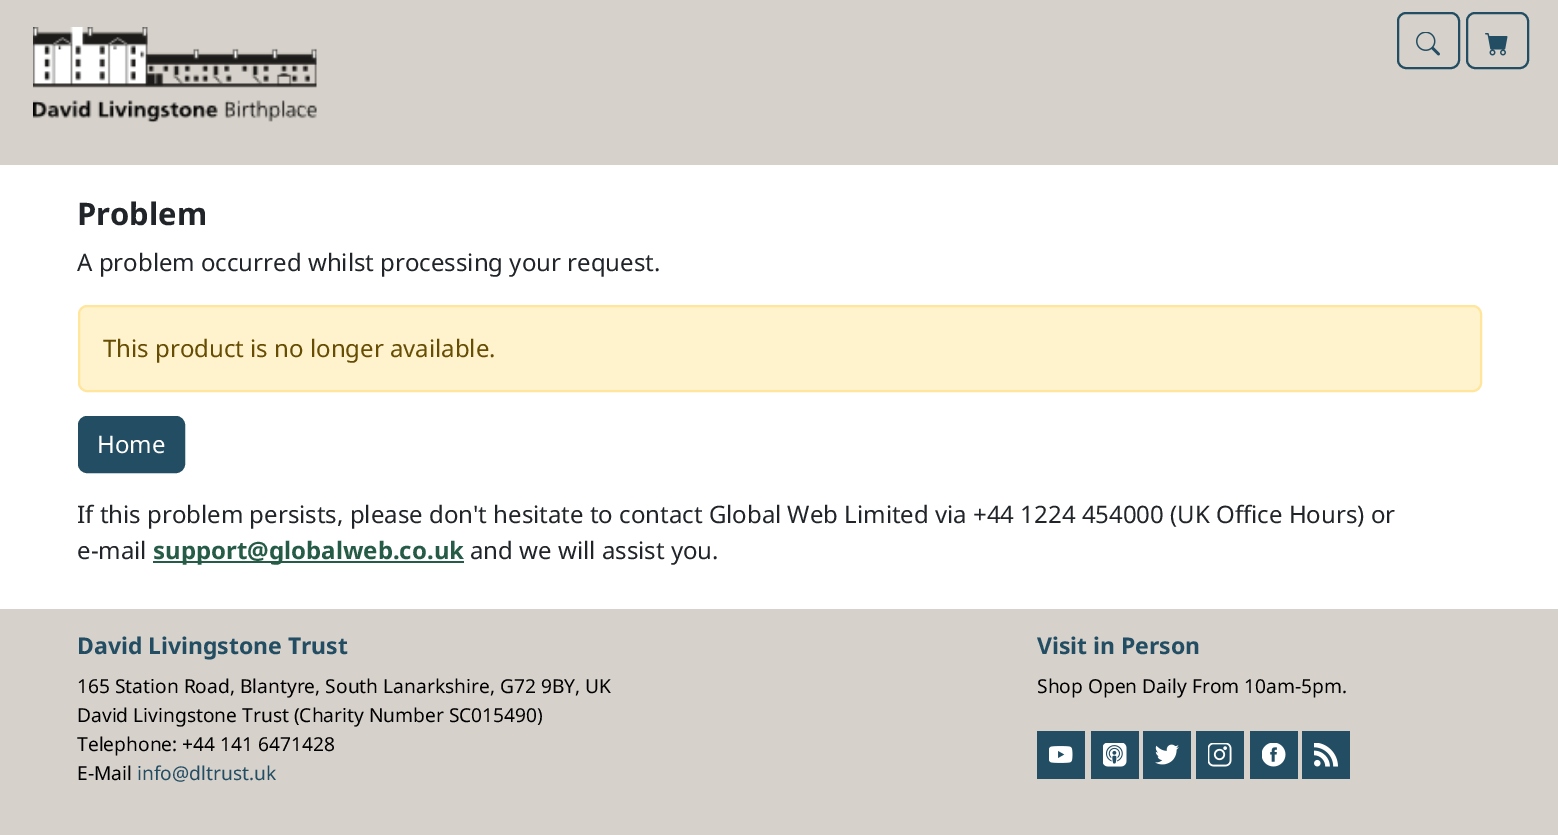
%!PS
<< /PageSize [1558 835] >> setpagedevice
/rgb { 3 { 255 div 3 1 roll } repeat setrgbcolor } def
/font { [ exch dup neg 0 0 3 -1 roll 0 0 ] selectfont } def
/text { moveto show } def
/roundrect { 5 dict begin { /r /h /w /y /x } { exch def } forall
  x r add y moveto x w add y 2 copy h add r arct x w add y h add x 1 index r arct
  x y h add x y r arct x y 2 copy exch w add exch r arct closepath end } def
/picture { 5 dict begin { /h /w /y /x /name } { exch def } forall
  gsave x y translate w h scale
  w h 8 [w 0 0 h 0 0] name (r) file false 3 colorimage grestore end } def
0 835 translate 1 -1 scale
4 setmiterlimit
255 255 255 rgb
0 0 1558 835 rectfill
214 209 202 rgb
0 0 1558 165 rectfill
(img_01.rgb) 33 27 284 96 picture
34 77 98 rgb
2 setlinewidth
1398 13 61 55 8 roundrect stroke
(img_02.rgb) 1416 32 24 24 picture
1467 13 61 55 8 roundrect stroke
(img_03.rgb) 1485 33 23 23 picture
255 243 205 rgb
79 306 1402 85 8 roundrect gsave fill grestore
255 230 156 rgb
stroke
34 77 98 rgb
79 417 105 55 8 roundrect gsave fill grestore
stroke
38 91 71 rgb
153 561 311 2 rectfill
214 209 202 rgb
0 609 1558 226 rectfill
34 77 98 rgb
1037 731 48 48 rectfill
1091 731 48 48 rectfill
1143 731 48 48 rectfill
1196 731 48 48 rectfill
1250 731 48 48 rectfill
1302 731 48 48 rectfill
(img_04.rgb) 1049 746 24 17 picture
(img_05.rgb) 1103 743 24 24 picture
(img_06.rgb) 1155 744 24 21 picture
(img_07.rgb) 1208 743 24 24 picture
(img_08.rgb) 1262 743 24 24 picture
(img_09.rgb) 1314 743 24 24 picture
/NotoSans-Bold 31 font
33 37 41 rgb
(Problem) 77 225 text
/NotoSans-Regular 24 font
(A problem occurred whilst processing your request.) 77 271 text
102 77 3 rgb
(This product is no longer available.) 103 357 text
255 255 255 rgb
(Home) 97 453 text
33 37 41 rgb
(If this problem persists, please don't hesitate to contact Global Web Limited via +44 1224 454000 \(UK Office Hours\) or) 77 523 text
(e-mail) 77 559 text
/NotoSans-Bold 24 font
38 91 71 rgb
(support@globalweb.co.uk) 153 559 text
/NotoSans-Regular 24 font
33 37 41 rgb
(and we will assist you.) 470 559 text
/NotoSans-Bold 23 font
34 77 98 rgb
(David Livingstone Trust) 77 654 text
/NotoSans-Regular 19.2 font
0 0 0 rgb
(165 Station Road, Blantyre, South Lanarkshire, G72 9BY, UK) 77 693 text
(David Livingstone Trust \(Charity Number SC015490\)) 77 722 text
(Telephone: +44 141 6471428) 77 751 text
(E-Mail) 77 780 text
34 77 98 rgb
(info@dltrust.uk) 137 780 text
/NotoSans-Bold 23 font
(Visit in Person) 1037 654 text
/NotoSans-Regular 19.2 font
0 0 0 rgb
(Shop Open Daily From 10am-5pm.) 1037 693 text
showpage
